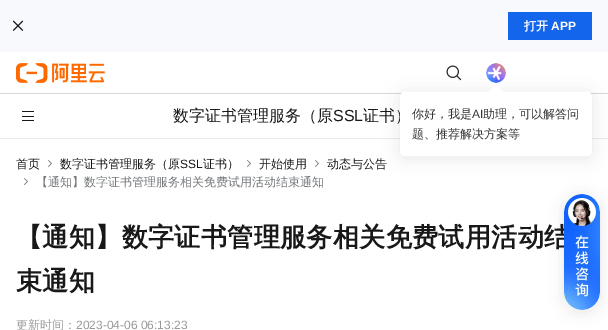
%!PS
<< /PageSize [608 330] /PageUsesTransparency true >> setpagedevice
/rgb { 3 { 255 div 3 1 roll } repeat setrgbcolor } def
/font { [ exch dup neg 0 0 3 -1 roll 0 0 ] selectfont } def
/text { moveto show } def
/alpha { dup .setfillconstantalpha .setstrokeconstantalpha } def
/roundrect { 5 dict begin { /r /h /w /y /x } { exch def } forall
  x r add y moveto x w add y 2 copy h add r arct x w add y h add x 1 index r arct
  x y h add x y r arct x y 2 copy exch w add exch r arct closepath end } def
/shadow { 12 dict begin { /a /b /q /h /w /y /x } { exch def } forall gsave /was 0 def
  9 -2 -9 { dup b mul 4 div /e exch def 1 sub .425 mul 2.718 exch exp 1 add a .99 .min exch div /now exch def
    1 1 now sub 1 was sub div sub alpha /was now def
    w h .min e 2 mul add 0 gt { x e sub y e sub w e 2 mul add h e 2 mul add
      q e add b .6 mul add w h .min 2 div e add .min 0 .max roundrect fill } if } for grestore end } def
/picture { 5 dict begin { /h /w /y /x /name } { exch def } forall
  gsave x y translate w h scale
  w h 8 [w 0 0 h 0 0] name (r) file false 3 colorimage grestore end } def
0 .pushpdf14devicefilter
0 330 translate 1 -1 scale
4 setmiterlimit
255 255 255 rgb
0 0 608 330 rectfill
247 249 252 rgb
0 0 608 52 rectfill
(img_01.rgb) 12 20 12 11 picture
19 102 236 rgb
508 12 84 28 rectfill
215 216 217 rgb
0 93 608 1 rectfill
(img_02.rgb) 16 63 89 20 picture
(img_03.rgb) 446 65 16 16 picture
(img_04.rgb) 486 63 20 20 picture
(img_05.rgb) 487 66 15 15 picture
233 233 233 rgb
0 138 608 1 rectfill
0 0 0 rgb
400 94 192 64 5 9 0.1 shadow
24 24 24 rgb
22 111 12 1 rectfill
22 116 12 1 rectfill
22 120 12 1 rectfill
(img_06.rgb) 48 160 4 7 picture
(img_06.rgb) 247 160 4 7 picture
(img_06.rgb) 315 160 4 7 picture
(img_06.rgb) 24 178 4 7 picture
0 0 0 rgb
564 196 36 116 18 7.5 0.1 shadow
/WenQuanYiZenHei-Bold 12 font
255 255 255 rgb
(打开) 524 30 text
/LiberationSans-Bold 12 font
(APP) 551 30 text
/WenQuanYiZenHei-Medium 16 font
24 24 24 rgb
(数字证书管理服务（原) 173 121 text
/LiberationSans-Regular 16 font
(SSL) 333 121 text
/WenQuanYiZenHei-Medium 16 font
(证书）) 363 121 text
255 255 255 rgb
400 92 192 64 5 roundrect fill
496 85 moveto 7 7 rlineto -7 7 rlineto -7 -7 rlineto closepath fill
/WenQuanYiZenHei-Medium 12 font
51 51 51 rgb
(题、推荐解决方案等) 412 138 text
(助理，可以解答问) 483 118 text
/LiberationSans-Regular 12 font
(AI) 472 118 text
/WenQuanYiZenHei-Medium 12 font
(你好，我是) 412 118 text
24 24 24 rgb
(首页) 16 168 text
(数字证书管理服务（原) 60 168 text
/LiberationSans-Regular 12 font
(SSL) 180 168 text
/WenQuanYiZenHei-Medium 12 font
(证书）) 203 168 text
(开始使用) 259 168 text
(动态与公告) 327 168 text
115 119 122 rgb
(【通知】数字证书管理服务相关免费试用活动结束通知) 36 186 text
/WenQuanYiZenHei-Bold 26 font
24 24 24 rgb
16 246 moveto 0.4 0 (【通知】数字证书管理服务相关免费试用活动结) ashow
16 290 moveto 0.4 0 (束通知) ashow
/WenQuanYiZenHei-Medium 12 font
153 153 153 rgb
(更新时间：) 16 329 text
/LiberationSans-Regular 12 font
(2023-04-06 06:13:23) 76 329 text
(img_07.rgb) 564 194 36 116 picture
.poppdf14devicefilter showpage
